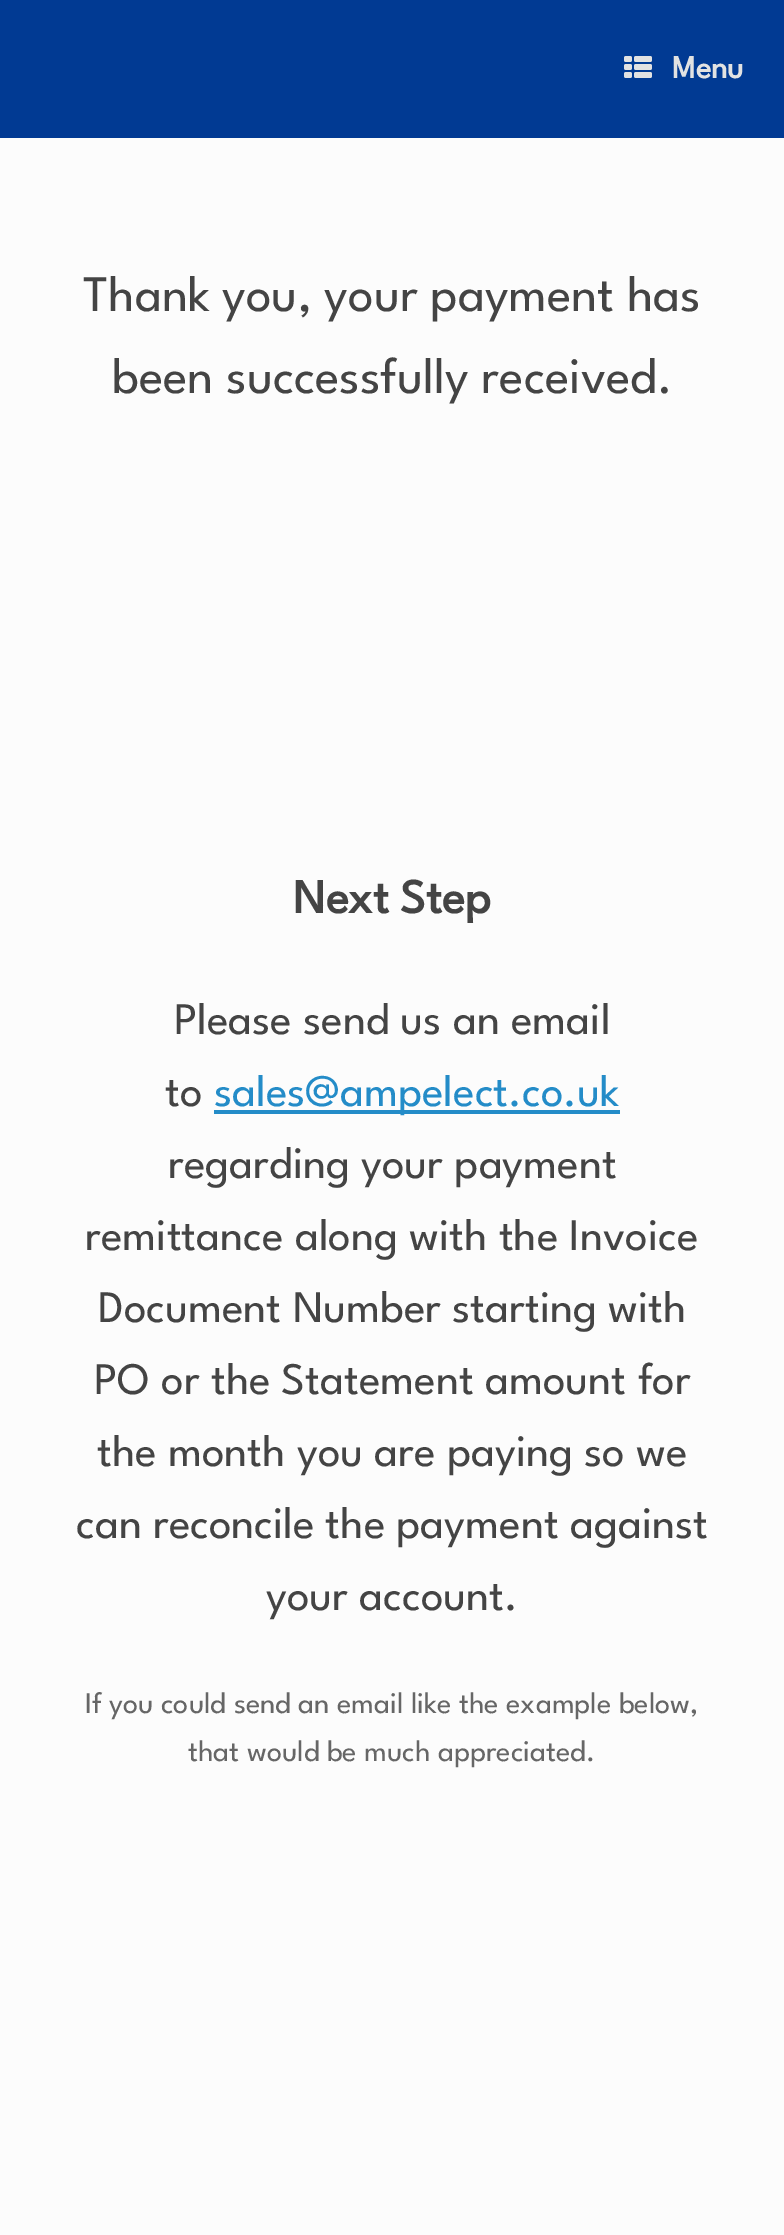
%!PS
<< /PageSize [784 2235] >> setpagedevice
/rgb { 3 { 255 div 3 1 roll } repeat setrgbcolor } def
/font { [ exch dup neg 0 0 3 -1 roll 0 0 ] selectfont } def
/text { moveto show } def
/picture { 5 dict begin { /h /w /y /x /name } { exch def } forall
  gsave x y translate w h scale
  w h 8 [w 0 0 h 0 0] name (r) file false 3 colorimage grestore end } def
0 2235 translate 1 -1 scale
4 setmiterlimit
252 252 252 rgb
0 0 784 2235 rectfill
1 58 147 rgb
0 0 784 138 rectfill
(img_01.rgb) 624 56 28 22 picture
36 140 200 rgb
214 1110 406 4 rectfill
/LeagueSpartan-Bold 32 font
226 226 226 rgb
(Menu) 672 78 text
/LeagueSpartan-Thin 51 font
68 68 68 rgb
(Thank you, your payment has) 83 311 text
(been successfully received.) 112 393 text
/LeagueSpartan-Bold 48 font
(Next Step) 293 913 text
/LeagueSpartan-Thin 45 font
(Please send us an email) 174 1034 text
(to) 165 1106 text
36 140 200 rgb
(sales@ampelect.co.uk) 214 1106 text
68 68 68 rgb
(regarding your payment) 168 1178 text
(remittance along with the Invoice) 85 1250 text
(Document Number starting with) 98 1322 text
(PO or the Statement amount for) 94 1394 text
(the month you are paying so we) 97 1466 text
(can reconcile the payment against) 76 1538 text
(your account.) 266 1610 text
/LeagueSpartan-Thin 30 font
102 102 102 rgb
(If you could send an email like the example below,) 85 1713 text
(that would be much appreciated.) 188 1761 text
showpage
